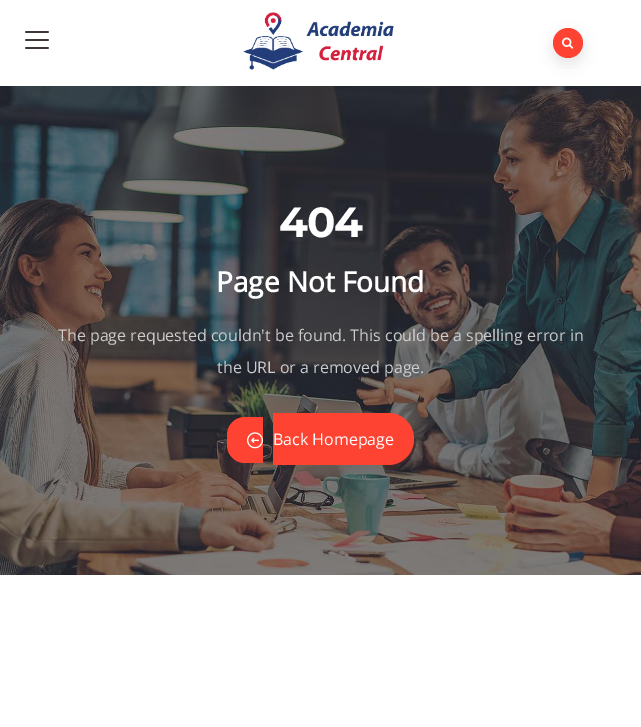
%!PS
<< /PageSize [641 727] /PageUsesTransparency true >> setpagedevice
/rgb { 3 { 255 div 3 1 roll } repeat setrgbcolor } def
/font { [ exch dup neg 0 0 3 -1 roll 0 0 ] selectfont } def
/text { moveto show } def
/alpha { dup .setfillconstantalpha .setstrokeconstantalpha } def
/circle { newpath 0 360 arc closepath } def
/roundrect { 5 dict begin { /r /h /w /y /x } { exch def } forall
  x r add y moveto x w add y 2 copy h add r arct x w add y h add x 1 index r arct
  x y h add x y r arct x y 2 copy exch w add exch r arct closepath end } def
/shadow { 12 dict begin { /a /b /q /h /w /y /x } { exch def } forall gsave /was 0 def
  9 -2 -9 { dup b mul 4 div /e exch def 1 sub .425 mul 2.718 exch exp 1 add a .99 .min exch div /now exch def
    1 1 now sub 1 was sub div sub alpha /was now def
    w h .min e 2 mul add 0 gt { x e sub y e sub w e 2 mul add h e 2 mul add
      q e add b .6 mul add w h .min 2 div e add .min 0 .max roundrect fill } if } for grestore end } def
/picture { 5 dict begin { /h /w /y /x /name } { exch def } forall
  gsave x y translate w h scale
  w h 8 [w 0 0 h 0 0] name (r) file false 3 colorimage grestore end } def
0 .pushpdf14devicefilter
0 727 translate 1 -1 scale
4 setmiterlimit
255 255 255 rgb
0 0 641 727 rectfill
(img_01.rgb) 25 31 24 18 picture
(img_02.rgb) 243 12 151 58 picture
0 0 0 rgb
553 34 30 30 15 7 0.1 shadow
255 67 50 rgb
568 43 15 circle fill
(img_03.rgb) 562 37 12 12 picture
(img_04.rgb) 0 86 641 489 picture
245 417 moveto 18 0 rlineto 0 46 rlineto -18 0 rlineto -10 0 -18 -8 -18 -18 rcurveto 0 -10 rlineto 0 -10 8 -18 18 -18 rcurveto closepath fill
(img_05.rgb) 247 432 16 17 picture
273 413 moveto 115 0 rlineto 14.5 0 26 11.5 26 26 rcurveto 0 14.5 -11.5 26 -26 26 rcurveto -115 0 rlineto closepath fill
/Montserrat-Bold 42 font
255 255 255 rgb
279 237 moveto -1 0 (404) ashow
/OpenSans-Bold 28 font
(Page Not Found) 216 292 text
/OpenSans-Regular 16 font
204 204 204 rgb
(The page requested couldn't be found. This could be a spelling error in) 58 341 text
(the URL or a removed page.) 217 373 text
255 255 255 rgb
(Back Homepage) 273 445 text
.poppdf14devicefilter showpage
